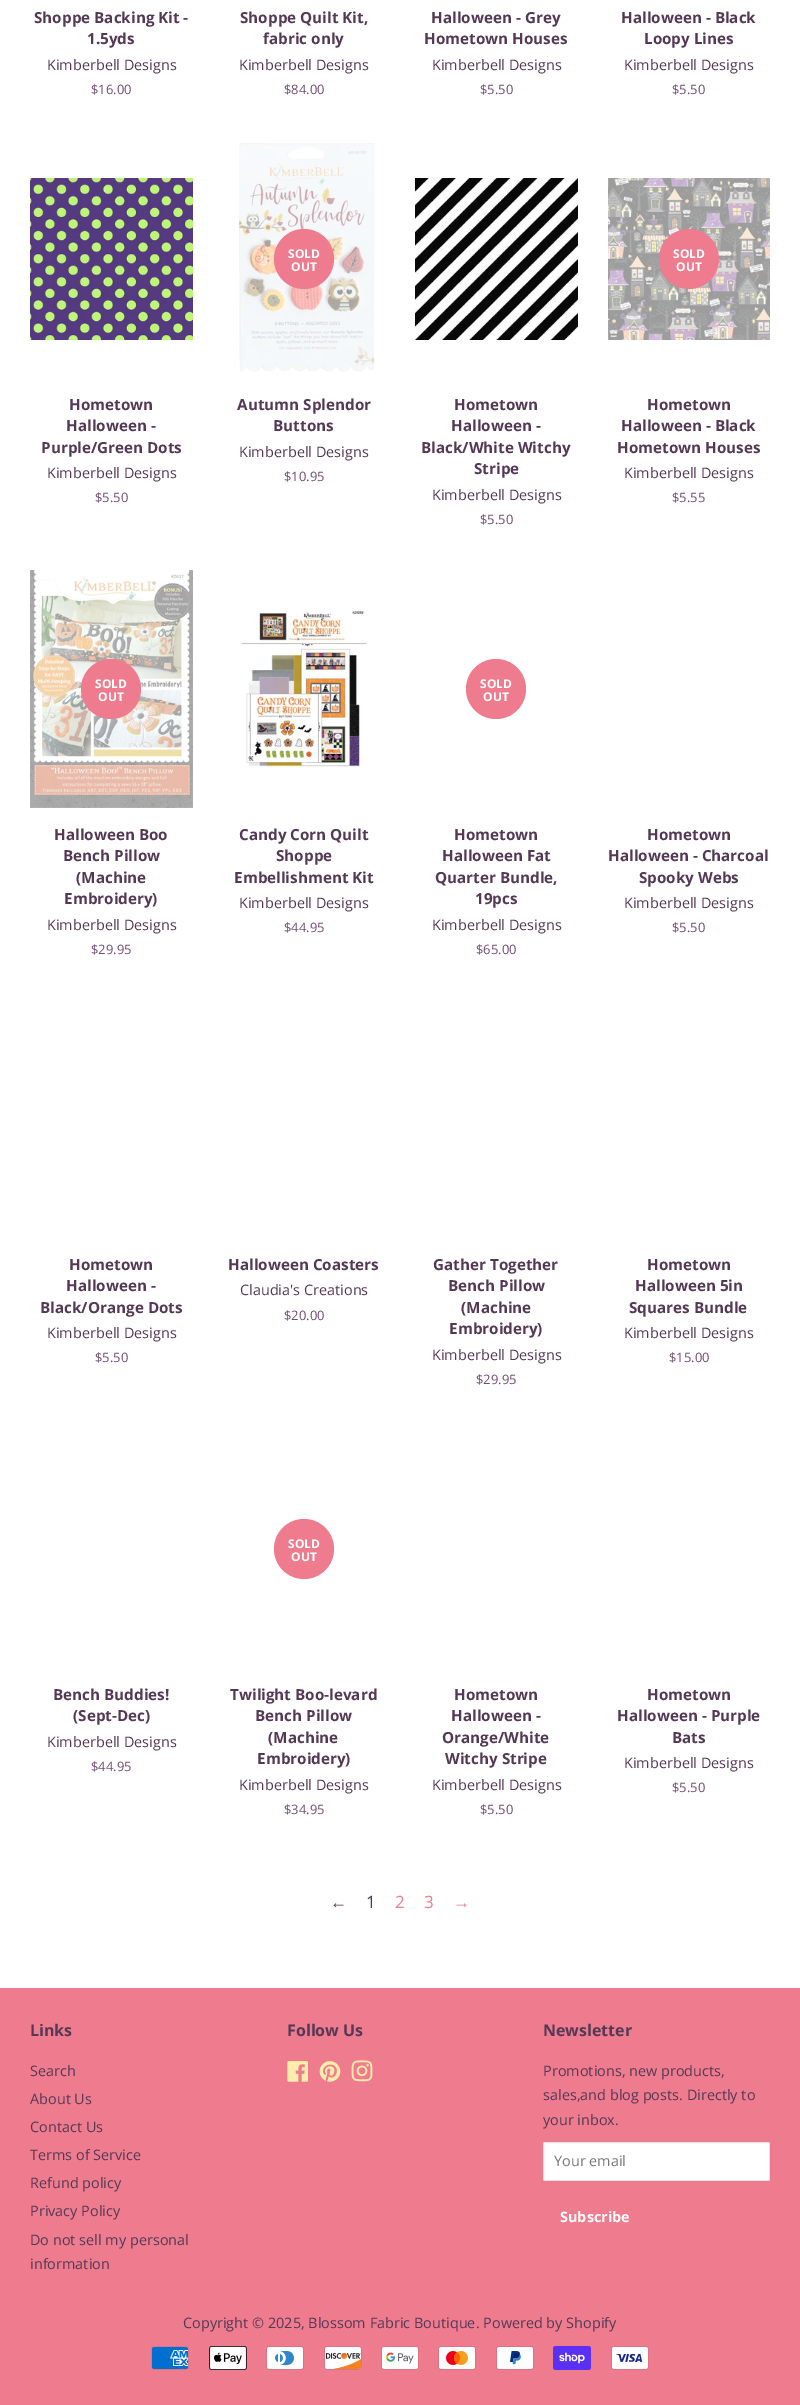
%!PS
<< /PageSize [800 2405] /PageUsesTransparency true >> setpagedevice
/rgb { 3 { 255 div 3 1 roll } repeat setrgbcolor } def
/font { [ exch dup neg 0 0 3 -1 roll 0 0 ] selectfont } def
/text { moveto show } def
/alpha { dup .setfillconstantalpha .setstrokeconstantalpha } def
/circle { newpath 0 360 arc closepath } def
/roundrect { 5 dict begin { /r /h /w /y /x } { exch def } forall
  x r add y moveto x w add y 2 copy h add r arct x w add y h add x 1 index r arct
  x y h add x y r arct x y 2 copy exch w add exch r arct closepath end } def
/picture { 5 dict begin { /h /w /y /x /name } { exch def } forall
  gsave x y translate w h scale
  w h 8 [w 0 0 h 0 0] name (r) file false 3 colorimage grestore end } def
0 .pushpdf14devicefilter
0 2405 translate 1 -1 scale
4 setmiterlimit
255 255 255 rgb
0 0 800 2405 rectfill
(img_01.rgb) 30 178 163 162 picture
(img_02.rgb) 239 143 136 229 picture
239 124 142 rgb
304 259 30 circle fill
(img_03.rgb) 415 178 163 162 picture
(img_04.rgb) 608 178 162 162 picture
689 259 30 circle fill
(img_05.rgb) 30 570 163 238 picture
111 689 30 circle fill
(img_06.rgb) 241 611 126 156 picture
496 689 30 circle fill
304 1549 30 circle fill
0 1988 800 417 rectfill
(img_07.rgb) 287 2061 21 21 picture
(img_08.rgb) 319 2061 22 21 picture
(img_09.rgb) 351 2060 22 22 picture
255 255 255 rgb
543 2142 227 39 2 roundrect fill
0.15 alpha
84 56 85 rgb
543.5 2142.5 226 38 1.5 roundrect stroke
1 alpha
(img_10.rgb) 151 2346 38 24 picture
(img_11.rgb) 209 2346 38 24 picture
(img_12.rgb) 266 2346 38 24 picture
(img_13.rgb) 324 2346 38 24 picture
(img_14.rgb) 381 2346 38 24 picture
(img_15.rgb) 438 2346 38 24 picture
(img_16.rgb) 496 2346 38 24 picture
(img_17.rgb) 553 2346 38 24 picture
(img_18.rgb) 611 2346 38 24 picture
/OpenSans-Bold 15.25 font
(Shoppe Backing Kit -) 34 23 text
(1.5yds) 87 44 text
/OpenSans-Regular 14.45 font
(Kimberbell Designs) 47 70 text
/OpenSans-Regular 13 font
114 76 116 rgb
($16.00) 91 94 text
/OpenSans-Bold 15.25 font
84 56 85 rgb
(Shoppe Quilt Kit,) 240 23 text
(fabric only) 263 44 text
/OpenSans-Regular 14.45 font
(Kimberbell Designs) 239 70 text
/OpenSans-Regular 13 font
114 76 116 rgb
($84.00) 284 94 text
/OpenSans-Bold 15.25 font
84 56 85 rgb
(Halloween - Grey) 431 23 text
(Hometown Houses) 424 44 text
/OpenSans-Regular 14.45 font
(Kimberbell Designs) 432 70 text
/OpenSans-Regular 13 font
114 76 116 rgb
($5.50) 480 94 text
/OpenSans-Bold 15.25 font
84 56 85 rgb
(Halloween - Black) 621 23 text
(Loopy Lines) 644 44 text
/OpenSans-Regular 14.45 font
(Kimberbell Designs) 624 70 text
/OpenSans-Regular 13 font
114 76 116 rgb
($5.50) 672 94 text
/OpenSans-Bold 15.25 font
84 56 85 rgb
(Hometown) 69 410 text
(Halloween -) 66 431 text
(Purple/Green Dots) 41 453 text
/OpenSans-Regular 14.45 font
(Kimberbell Designs) 47 478 text
/OpenSans-Regular 13 font
114 76 116 rgb
($5.50) 95 502 text
/OpenSans-Bold 12 font
255 255 255 rgb
(SOLD) 288 258 text
(OUT) 291 271 text
/OpenSans-Bold 15.25 font
84 56 85 rgb
(Autumn Splendor) 237 410 text
(Buttons) 273 431 text
/OpenSans-Regular 14.45 font
(Kimberbell Designs) 239 457 text
/OpenSans-Regular 13 font
114 76 116 rgb
($10.95) 284 481 text
/OpenSans-Bold 15.25 font
84 56 85 rgb
(Hometown) 454 410 text
(Halloween -) 451 431 text
(Black/White Witchy) 421 453 text
(Stripe) 474 474 text
/OpenSans-Regular 14.45 font
(Kimberbell Designs) 432 500 text
/OpenSans-Regular 13 font
114 76 116 rgb
($5.50) 480 524 text
/OpenSans-Bold 12 font
255 255 255 rgb
(SOLD) 673 258 text
(OUT) 676 271 text
/OpenSans-Bold 15.25 font
84 56 85 rgb
(Hometown) 647 410 text
(Halloween - Black) 621 431 text
(Hometown Houses) 617 453 text
/OpenSans-Regular 14.45 font
(Kimberbell Designs) 624 478 text
/OpenSans-Regular 13 font
114 76 116 rgb
($5.55) 672 502 text
/OpenSans-Bold 12 font
255 255 255 rgb
(SOLD) 95 688 text
(OUT) 98 701 text
/OpenSans-Bold 15.25 font
84 56 85 rgb
(Halloween Boo) 54 840 text
(Bench Pillow) 63 861 text
(\(Machine) 76 883 text
(Embroidery\)) 64 904 text
/OpenSans-Regular 14.45 font
(Kimberbell Designs) 47 930 text
/OpenSans-Regular 13 font
114 76 116 rgb
($29.95) 91 954 text
/OpenSans-Bold 15.25 font
84 56 85 rgb
(Candy Corn Quilt) 239 840 text
(Shoppe) 276 861 text
(Embellishment Kit) 234 883 text
/OpenSans-Regular 14.45 font
(Kimberbell Designs) 239 908 text
/OpenSans-Regular 13 font
114 76 116 rgb
($44.95) 284 932 text
/OpenSans-Bold 12 font
255 255 255 rgb
(SOLD) 480 688 text
(OUT) 483 701 text
/OpenSans-Bold 15.25 font
84 56 85 rgb
(Hometown) 454 840 text
(Halloween Fat) 442 861 text
(Quarter Bundle,) 435 883 text
(19pcs) 475 904 text
/OpenSans-Regular 14.45 font
(Kimberbell Designs) 432 930 text
/OpenSans-Regular 13 font
114 76 116 rgb
($65.00) 476 954 text
/OpenSans-Bold 15.25 font
84 56 85 rgb
(Hometown) 647 840 text
(Halloween - Charcoal) 608 861 text
(Spooky Webs) 639 883 text
/OpenSans-Regular 14.45 font
(Kimberbell Designs) 624 908 text
/OpenSans-Regular 13 font
114 76 116 rgb
($5.50) 672 932 text
/OpenSans-Bold 15.25 font
84 56 85 rgb
(Hometown) 69 1270 text
(Halloween -) 66 1291 text
(Black/Orange Dots) 40 1313 text
/OpenSans-Regular 14.45 font
(Kimberbell Designs) 47 1338 text
/OpenSans-Regular 13 font
114 76 116 rgb
($5.50) 95 1362 text
/OpenSans-Bold 15.25 font
84 56 85 rgb
(Halloween Coasters) 228 1270 text
/OpenSans-Regular 14.45 font
(Claudia's Creations) 240 1295 text
/OpenSans-Regular 13 font
114 76 116 rgb
($20.00) 284 1320 text
/OpenSans-Bold 15.25 font
84 56 85 rgb
(Gather Together) 433 1270 text
(Bench Pillow) 448 1291 text
(\(Machine) 461 1313 text
(Embroidery\)) 449 1334 text
/OpenSans-Regular 14.45 font
(Kimberbell Designs) 432 1360 text
/OpenSans-Regular 13 font
114 76 116 rgb
($29.95) 476 1384 text
/OpenSans-Bold 15.25 font
84 56 85 rgb
(Hometown) 647 1270 text
(Halloween 5in) 635 1291 text
(Squares Bundle) 629 1313 text
/OpenSans-Regular 14.45 font
(Kimberbell Designs) 624 1338 text
/OpenSans-Regular 13 font
114 76 116 rgb
($15.00) 669 1362 text
/OpenSans-Bold 15.25 font
84 56 85 rgb
(Bench Buddies!) 53 1700 text
(\(Sept-Dec\)) 73 1721 text
/OpenSans-Regular 14.45 font
(Kimberbell Designs) 47 1747 text
/OpenSans-Regular 13 font
114 76 116 rgb
($44.95) 91 1771 text
/OpenSans-Bold 12 font
255 255 255 rgb
(SOLD) 288 1548 text
(OUT) 291 1561 text
/OpenSans-Bold 15.25 font
84 56 85 rgb
(Twilight Boo-levard) 230 1700 text
(Bench Pillow) 255 1721 text
(\(Machine) 268 1743 text
(Embroidery\)) 257 1764 text
/OpenSans-Regular 14.45 font
(Kimberbell Designs) 239 1790 text
/OpenSans-Regular 13 font
114 76 116 rgb
($34.95) 284 1814 text
/OpenSans-Bold 15.25 font
84 56 85 rgb
(Hometown) 454 1700 text
(Halloween -) 451 1721 text
(Orange/White) 442 1743 text
(Witchy Stripe) 445 1764 text
/OpenSans-Regular 14.45 font
(Kimberbell Designs) 432 1790 text
/OpenSans-Regular 13 font
114 76 116 rgb
($5.50) 480 1814 text
/OpenSans-Bold 15.25 font
84 56 85 rgb
(Hometown) 647 1700 text
(Halloween - Purple) 617 1721 text
(Bats) 672 1743 text
/OpenSans-Regular 14.45 font
(Kimberbell Designs) 624 1768 text
/OpenSans-Regular 13 font
114 76 116 rgb
($5.50) 672 1792 text
/LiberationSans-Regular 17 font
84 56 85 rgb
(←) 330 1908 text
/OpenSans-Regular 17 font
(1) 366 1908 text
239 124 142 rgb
(2) 395 1908 text
(3) 424 1908 text
/LiberationSans-Regular 17 font
(→) 453 1908 text
/OpenSans-Bold 16 font
84 56 85 rgb
(Links) 30 2036 text
/OpenSans-Regular 14.45 font
(Search) 30 2076 text
(About Us) 30 2104 text
(Contact Us) 30 2132 text
(Terms of Service) 30 2160 text
(Refund policy) 30 2188 text
(Privacy Policy) 30 2216 text
(Do not sell my personal) 30 2245 text
(information) 30 2269 text
/OpenSans-Bold 16 font
(Follow Us) 287 2036 text
(Newsletter) 543 2036 text
/OpenSans-Regular 14.45 font
(Promotions, new products,) 543 2076 text
(sales,and blog posts. Directly to) 543 2100 text
(your inbox.) 543 2125 text
117 117 117 rgb
(Your email) 554 2166 text
/OpenSans-Bold 14.45 font
255 255 255 rgb
(Subscribe) 560 2222 text
/OpenSans-Regular 14.45 font
84 56 85 rgb
(Copyright © 2025, Blossom Fabric Boutique. Powered by Shopify) 183 2328 text
.poppdf14devicefilter showpage
